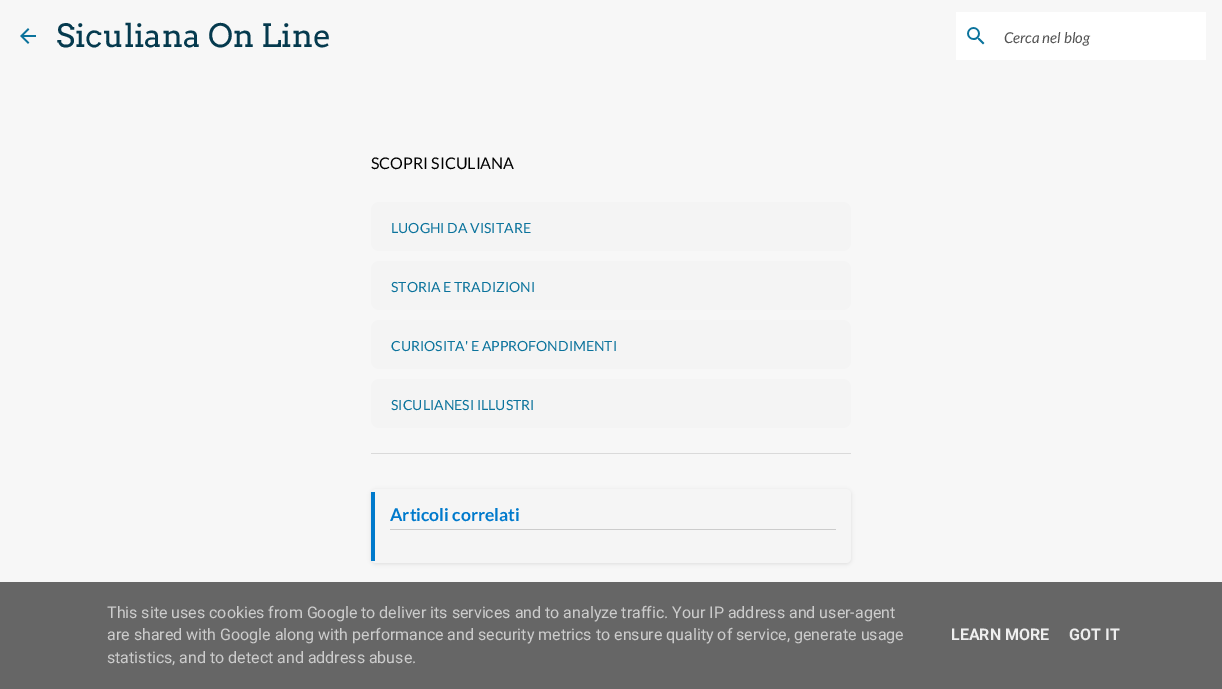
%!PS
<< /PageSize [1222 689] /PageUsesTransparency true >> setpagedevice
/rgb { 3 { 255 div 3 1 roll } repeat setrgbcolor } def
/font { [ exch dup neg 0 0 3 -1 roll 0 0 ] selectfont } def
/text { moveto show } def
/alpha { dup .setfillconstantalpha .setstrokeconstantalpha } def
/roundrect { 5 dict begin { /r /h /w /y /x } { exch def } forall
  x r add y moveto x w add y 2 copy h add r arct x w add y h add x 1 index r arct
  x y h add x y r arct x y 2 copy exch w add exch r arct closepath end } def
/shadow { 12 dict begin { /a /b /q /h /w /y /x } { exch def } forall gsave /was 0 def
  9 -2 -9 { dup b mul 4 div /e exch def 1 sub .425 mul 2.718 exch exp 1 add a .99 .min exch div /now exch def
    1 1 now sub 1 was sub div sub alpha /was now def
    w h .min e 2 mul add 0 gt { x e sub y e sub w e 2 mul add h e 2 mul add
      q e add b .6 mul add w h .min 2 div e add .min 0 .max roundrect fill } if } for grestore end } def
/picture { 5 dict begin { /h /w /y /x /name } { exch def } forall
  gsave x y translate w h scale
  w h 8 [w 0 0 h 0 0] name (r) file false 3 colorimage grestore end } def
0 .pushpdf14devicefilter
0 689 translate 1 -1 scale
4 setmiterlimit
247 247 247 rgb
0 0 1222 689 rectfill
(img_01.rgb) 20 28 16 16 picture
255 255 255 rgb
956 12 250 48 rectfill
(img_02.rgb) 967 27 18 18 picture
244 244 244 rgb
371 202 480 49 8 roundrect fill
371 261 480 49 8 roundrect fill
371 320 480 49 8 roundrect fill
371 379 480 49 8 roundrect fill
218 218 218 rgb
371 453 480 1 rectfill
0 0 0 rgb
371 490 480 74 5 2 0.1 shadow
245 245 245 rgb
371 489 480 74 5 roundrect fill
0 122 204 rgb
371 492 4 69 rectfill
204 204 204 rgb
390 529 446 1 rectfill
102 102 102 rgb
0 582 1222 107 rectfill
/Arvo-Regular 32 font
5 58 78 rgb
(Siculiana On Line) 56 47 text
/Lato-Italic 15 font
83 83 83 rgb
(Cerca nel blog) 1004 43 text
/Lato-Regular 16 font
0 0 0 rgb
(SCOPRI SICULIANA) 371 169 text
/Lato-Regular 14 font
11 115 156 rgb
(LUOGHI DA VISITARE) 391 233 text
(STORIA E TRADIZIONI) 391 292 text
(CURIOSITA' E APPROFONDIMENTI) 391 351 text
(SICULIANESI ILLUSTRI) 391 410 text
/Lato-Bold 17.5 font
0 122 204 rgb
(Articoli correlati) 390 521 text
/Roboto-Regular 16 font
204 204 204 rgb
(This site uses cookies from Google to deliver its services and to analyze traffic. Your IP address and user-agent) 107 618 text
(are shared with Google along with performance and security metrics to ensure quality of service, generate usage) 107 640 text
(statistics, and to detect and address abuse.) 107 663 text
/Roboto-Bold 16 font
238 238 238 rgb
(LEARN MORE) 951 640 text
(GOT IT) 1069 640 text
.poppdf14devicefilter showpage
